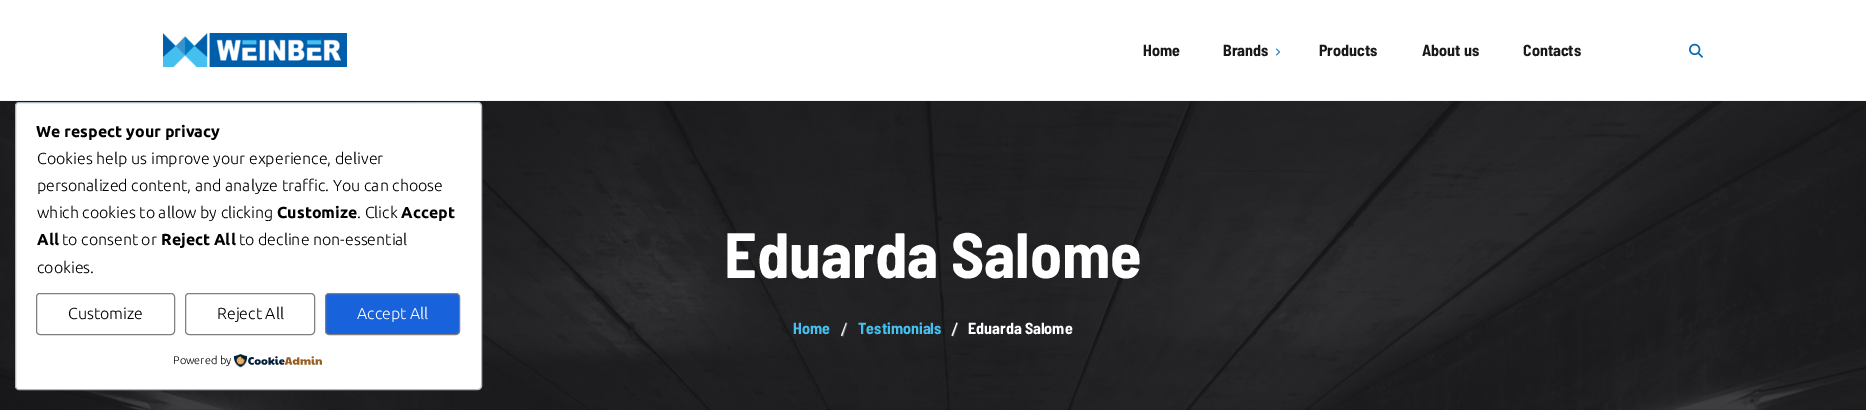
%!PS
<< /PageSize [1866 410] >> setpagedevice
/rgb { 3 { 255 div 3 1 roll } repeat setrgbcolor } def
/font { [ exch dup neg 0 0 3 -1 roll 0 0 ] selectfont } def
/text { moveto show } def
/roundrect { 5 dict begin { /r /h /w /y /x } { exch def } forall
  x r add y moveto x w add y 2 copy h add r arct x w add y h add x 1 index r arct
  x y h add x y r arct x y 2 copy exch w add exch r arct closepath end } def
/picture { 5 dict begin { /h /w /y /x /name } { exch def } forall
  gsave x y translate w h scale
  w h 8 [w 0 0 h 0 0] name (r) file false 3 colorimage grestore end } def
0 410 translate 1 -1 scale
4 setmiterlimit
255 255 255 rgb
0 0 1866 410 rectfill
(img_05.rgb) 0 101 1866 309 picture
15.5 102.5 466 287 3.5 roundrect gsave fill grestore
171 184 195 rgb
stroke
128 128 128 rgb
36.5 293.5 138 41 3.5 roundrect stroke
185.5 293.5 129 41 3.5 roundrect stroke
24 99 220 rgb
325.5 293.5 134 41 3.5 roundrect gsave fill grestore
128 128 128 rgb
stroke
(img_01.rgb) 234 354 88 14 picture
243 243 243 rgb
0 100 1866 1 rectfill
(img_02.rgb) 163 33 184 34 picture
(img_03.rgb) 1276 48 4 8 picture
(img_04.rgb) 1689 43 14 15 picture
123 123 124 rgb
846.5 323 moveto 1 0 rlineto -4.5 13.5 rlineto -1 -0.5 rlineto closepath fill
255 255 255 rgb
846 322.5 moveto 0.5 0.5 rlineto -4.5 13 rlineto -1 -0.5 rlineto closepath fill
122 122 123 rgb
957.5 323 moveto 0.5 0 rlineto -4.5 13.5 rlineto -1 -0.5 rlineto closepath fill
255 255 255 rgb
956.5 322.5 moveto 1 0.5 rlineto -5 13 rlineto -1 -0.5 rlineto closepath fill
/Ubuntu-Bold 16 font
0 0 0 rgb
(We respect your privacy) 36 137 text
/Ubuntu-Light 16 font
(Cookies help us improve your experience, deliver) 37 164 text
(personalized content, and analyze traffic. You can choose) 37 191 text
(which cookies to allow by clicking) 37 218 text
/Ubuntu-Bold 16 font
(Customize) 277 218 text
/Ubuntu-Light 16 font
(. Click) 357 218 text
/Ubuntu-Bold 16 font
(Accept) 401 218 text
(All) 37 245 text
/Ubuntu-Light 16 font
(to consent or) 62 245 text
/Ubuntu-Bold 16 font
(Reject All) 161 245 text
/Ubuntu-Light 16 font
(to decline non-essential) 239 245 text
(cookies.) 37 273 text
(Customize) 68 319 text
(Reject All) 217 319 text
255 255 255 rgb
(Accept All) 357 319 text
/Ubuntu-Light 11 font
0 0 0 rgb
(Powered by) 173 364 text
/BarlowSemiCondensed-Bold 16 font
25 25 27 rgb
(Home) 1143 56 text
(Brands) 1223 56 text
(Products) 1319 56 text
(About us) 1422 56 text
(Contacts) 1523 56 text
/BarlowSemiCondensed-Bold 64 font
255 255 255 rgb
(Eduarda Salome) 724 278 text
/BarlowSemiCondensed-Bold 16 font
69 191 238 rgb
(Home) 793 334 text
(Testimonials) 858 334 text
255 255 255 rgb
(Eduarda Salome) 968 334 text
showpage
